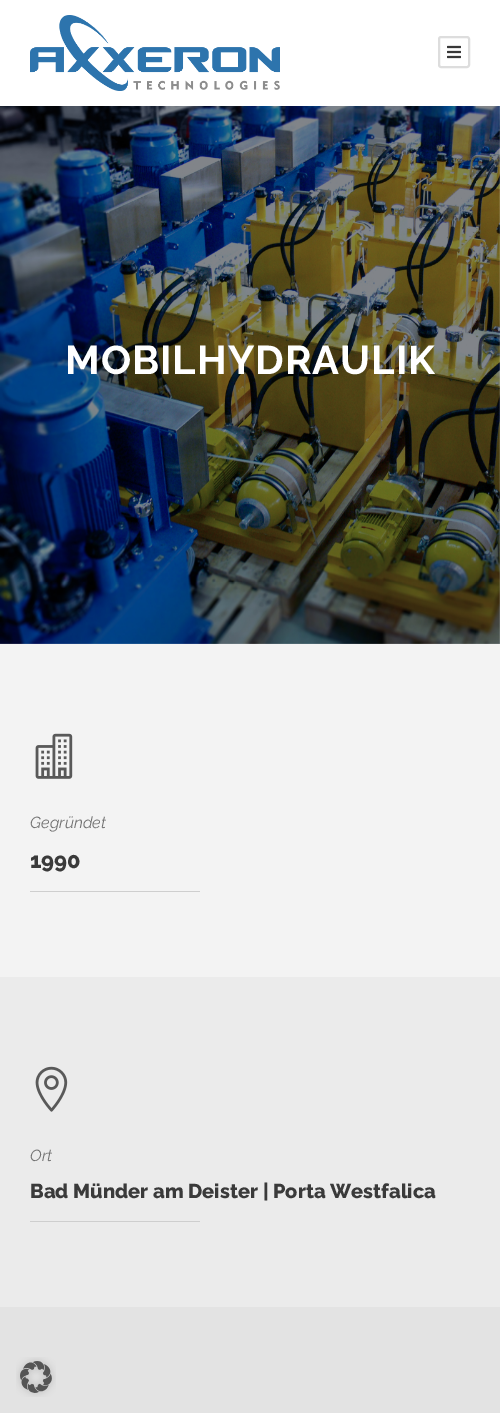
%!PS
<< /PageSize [500 1413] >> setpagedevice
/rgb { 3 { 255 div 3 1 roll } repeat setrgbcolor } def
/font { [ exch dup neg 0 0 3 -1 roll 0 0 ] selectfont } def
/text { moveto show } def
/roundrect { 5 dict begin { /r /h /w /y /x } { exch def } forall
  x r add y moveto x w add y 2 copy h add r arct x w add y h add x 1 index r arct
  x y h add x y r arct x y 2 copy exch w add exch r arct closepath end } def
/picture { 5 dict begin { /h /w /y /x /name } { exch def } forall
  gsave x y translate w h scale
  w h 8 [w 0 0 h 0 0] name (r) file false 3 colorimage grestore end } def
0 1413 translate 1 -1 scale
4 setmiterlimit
255 255 255 rgb
0 0 500 1413 rectfill
(img_01.rgb) 30 15 250 76 picture
221 221 221 rgb
2 setlinewidth
439 37 30 30 2 roundrect stroke
(img_02.rgb) 447 45 14 14 picture
(img_03.rgb) 0 106 500 538 picture
243 243 243 rgb
0 644 500 333 rectfill
(img_04.rgb) 35 733 38 46 picture
206 206 206 rgb
30 891 170 1 rectfill
235 235 235 rgb
0 977 500 330 rectfill
(img_05.rgb) 35 1066 33 46 picture
206 206 206 rgb
30 1221 170 1 rectfill
227 227 227 rgb
0 1307 500 106 rectfill
(img_06.rgb) 16 1357 40 40 picture
/Raleway-Bold 40 font
255 255 255 rgb
65 374 moveto 1 0 (MOBILHYDRAULIK) ashow
/Raleway-Italic 16 font
114 114 114 rgb
(Gegründet) 30 828 text
/Raleway-ExtraBold 22 font
58 58 58 rgb
(1990) 30 868 text
/Raleway-Italic 16 font
114 114 114 rgb
(Ort) 30 1161 text
/Raleway-ExtraBold 20 font
58 58 58 rgb
(Bad Münder am Deister | Porta Westfalica) 30 1198 text
showpage
